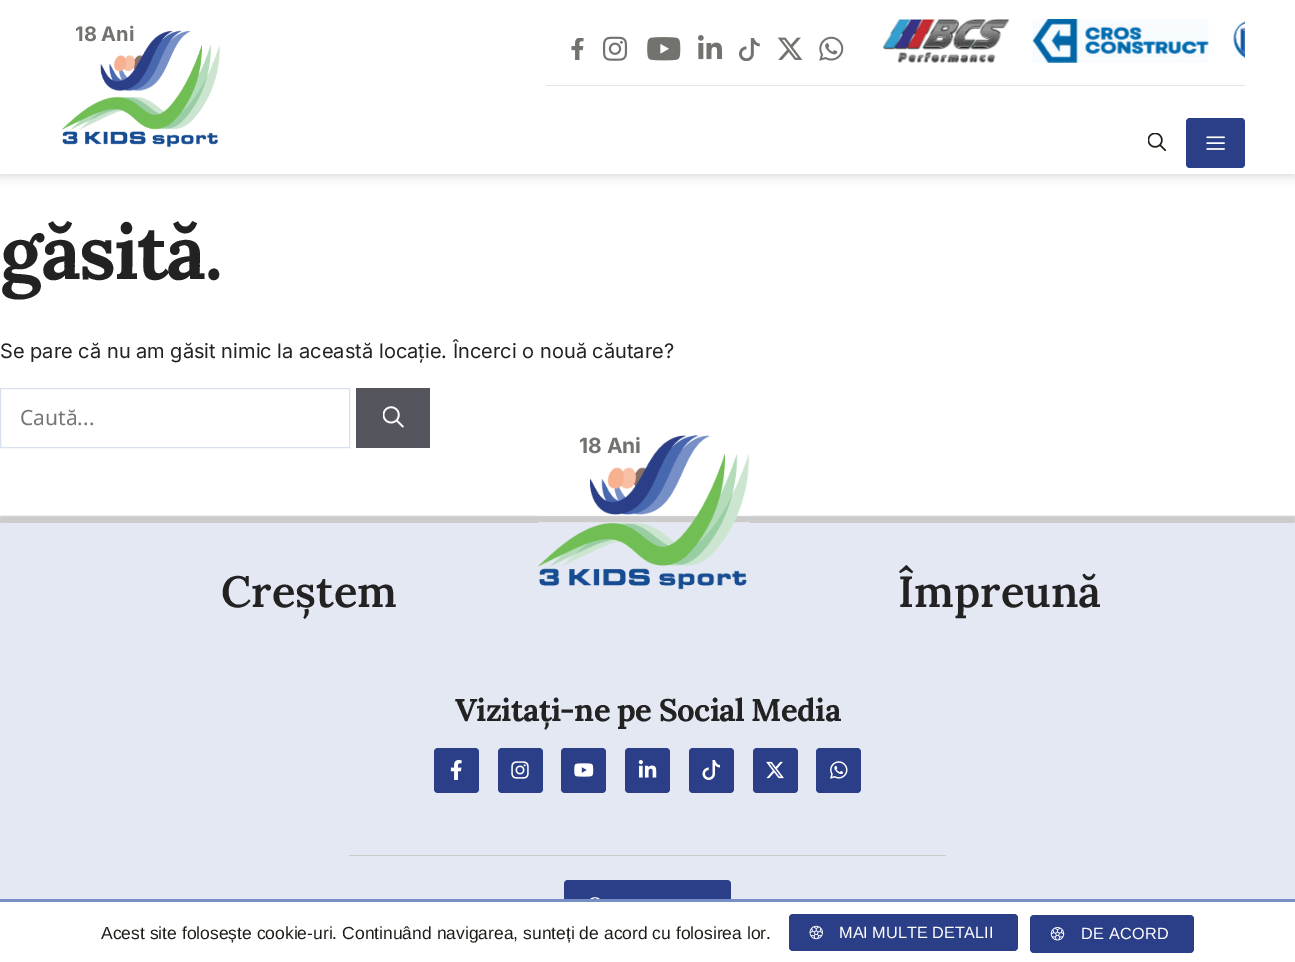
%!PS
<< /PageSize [1295 962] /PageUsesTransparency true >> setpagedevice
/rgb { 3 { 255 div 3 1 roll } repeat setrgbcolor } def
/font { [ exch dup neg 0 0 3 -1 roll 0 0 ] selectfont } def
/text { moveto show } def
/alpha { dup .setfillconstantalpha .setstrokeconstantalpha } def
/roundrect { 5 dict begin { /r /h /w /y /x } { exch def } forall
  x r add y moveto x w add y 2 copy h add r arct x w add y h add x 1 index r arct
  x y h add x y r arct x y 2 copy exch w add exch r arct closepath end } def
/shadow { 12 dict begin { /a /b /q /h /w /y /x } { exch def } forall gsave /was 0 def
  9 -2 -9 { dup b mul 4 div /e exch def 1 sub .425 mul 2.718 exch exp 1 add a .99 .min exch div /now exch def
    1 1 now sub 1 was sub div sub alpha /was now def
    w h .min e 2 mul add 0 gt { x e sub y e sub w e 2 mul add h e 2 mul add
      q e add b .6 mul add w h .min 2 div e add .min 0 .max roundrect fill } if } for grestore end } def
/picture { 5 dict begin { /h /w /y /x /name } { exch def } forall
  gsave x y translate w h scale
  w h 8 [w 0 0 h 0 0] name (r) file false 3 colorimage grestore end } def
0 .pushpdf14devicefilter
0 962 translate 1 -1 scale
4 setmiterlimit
255 255 255 rgb
0 0 1295 962 rectfill
0 0 0 rgb
0 0 1295 174 0 6 0.2 shadow
255 255 255 rgb
0 0 1295 174 rectfill
(img_01.rgb) 61 30 159 117 picture
(img_02.rgb) 1148 133 18 18 picture
43 62 136 rgb
1186 118 59 50 4 roundrect fill
(img_03.rgb) 1206 136 19 14 picture
229 229 229 rgb
546 85 699 1 rectfill
(img_04.rgb) 571 38 13 22 picture
(img_05.rgb) 602 36 26 25 picture
(img_06.rgb) 647 37 34 24 picture
(img_07.rgb) 698 35 25 25 picture
(img_08.rgb) 739 38 21 23 picture
(img_09.rgb) 777 37 26 23 picture
(img_10.rgb) 819 36 25 25 picture
(img_11.rgb) 883 19 127 44 picture
(img_12.rgb) 1032 19 177 44 picture
(img_13.rgb) 1233 21 12 37 picture
217 225 239 rgb
0.5 388.5 349 59 rectstroke
85 85 94 rgb
356 388 74 60 rectfill
(img_14.rgb) 383 406 21 22 picture
0 0 0 rgb
0 516 1295 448 0 0.5 0.2 shadow
227 232 243 rgb
0 523 1295 376 rectfill
(img_15.rgb) 538 435 212 155 picture
43 62 136 rgb
434 748 45 45 4 roundrect fill
(img_16.rgb) 450 760 12 20 picture
498 748 45 45 4 roundrect fill
(img_17.rgb) 511 761 18 18 picture
561 748 45 45 4 roundrect fill
(img_18.rgb) 574 763 20 14 picture
625 748 45 45 4 roundrect fill
(img_19.rgb) 638 760 19 18 picture
689 748 45 45 4 roundrect fill
(img_20.rgb) 702 760 18 20 picture
753 748 45 45 4 roundrect fill
(img_21.rgb) 766 761 18 18 picture
816 748 45 45 4 roundrect fill
(img_22.rgb) 830 761 18 18 picture
204 204 203 rgb
349 855 597 1 rectfill
43 62 136 rgb
564 880 167 50 4 roundrect fill
(img_23.rgb) 590 897 10 2 picture
255 255 255 rgb
0 902 1295 60 rectfill
118 144 199 rgb
0 899 1295 3 rectfill
43 62 136 rgb
789 914 229 37 4 roundrect fill
(img_24.rgb) 809 925 14 15 picture
1030 915 164 38 4 roundrect fill
(img_25.rgb) 1050 927 15 14 picture
/Inter-Bold 20 font
114 115 111 rgb
(18 Ani) 75 41 text
/Lora-Bold 76 font
34 34 34 rgb
0 279 moveto -1.75 0 (găsită.) ashow
/Inter-Regular 20 font
(Se pare că nu am găsit nimic la această locație. Încerci o nouă căutare?) 0 358 text
/NotoSans-Regular 21 font
117 117 117 rgb
(Caută...) 20 425 text
/Inter-Bold 21 font
114 115 111 rgb
(18 Ani) 579 453 text
/Lora-SemiBold 43.75 font
34 34 34 rgb
(Creștem) 221 607 text
(Împreună) 898 607 text
/Lora-Bold 31.25 font
455 721 moveto -0.7 0 (Vizitați-ne pe Social Media) ashow
/LiberationSans-Regular 17.5 font
29 30 24 rgb
(Acest site folosește cookie-uri. Continuând navigarea, sunteți de acord cu folosirea lor.) 101 939 text
/LiberationSans-Regular 16.25 font
255 255 255 rgb
(MAI MULTE DETALII) 839 938 text
1081 939 moveto 0.25 0 (DE ACORD) ashow
.poppdf14devicefilter showpage
